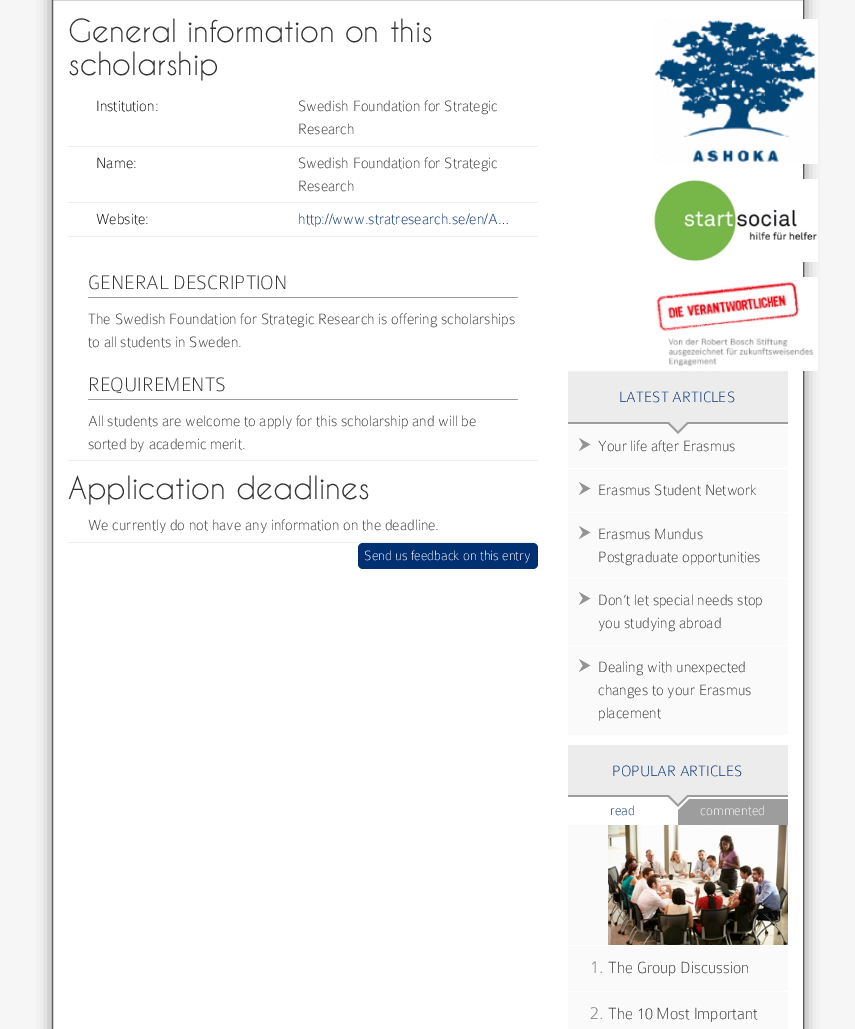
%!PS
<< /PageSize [855 1029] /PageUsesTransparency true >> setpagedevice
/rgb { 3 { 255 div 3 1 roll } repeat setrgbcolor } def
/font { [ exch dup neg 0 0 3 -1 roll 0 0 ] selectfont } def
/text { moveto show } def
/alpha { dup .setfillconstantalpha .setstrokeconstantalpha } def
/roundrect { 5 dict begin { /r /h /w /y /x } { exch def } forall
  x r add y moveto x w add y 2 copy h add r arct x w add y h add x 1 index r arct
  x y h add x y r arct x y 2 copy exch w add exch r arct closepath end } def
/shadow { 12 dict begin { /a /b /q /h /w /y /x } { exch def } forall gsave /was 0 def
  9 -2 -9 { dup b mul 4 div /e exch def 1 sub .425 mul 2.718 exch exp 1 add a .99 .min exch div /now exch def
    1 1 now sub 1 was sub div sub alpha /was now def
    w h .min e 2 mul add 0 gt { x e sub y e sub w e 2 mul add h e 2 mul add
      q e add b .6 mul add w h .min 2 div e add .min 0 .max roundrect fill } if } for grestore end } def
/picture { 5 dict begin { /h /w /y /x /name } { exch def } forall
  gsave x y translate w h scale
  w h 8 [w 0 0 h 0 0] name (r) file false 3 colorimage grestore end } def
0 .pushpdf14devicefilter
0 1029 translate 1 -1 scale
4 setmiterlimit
246 246 246 rgb
0 0 855 1029 rectfill
0 0 0 rgb
53 -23 750 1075 0 7.5 0.5 shadow
255 255 255 rgb
52.5 -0.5 moveto 751 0 rlineto 0 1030 rlineto -751 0 rlineto closepath gsave fill grestore
92 92 92 rgb
stroke
238 238 238 rgb
68 146 470 1 rectfill
68 202 470 1 rectfill
68 236 470 1 rectfill
68 460 470 1 rectfill
157 157 157 rgb
88 297 430 1 rectfill
88 399 430 1 rectfill
238 238 238 rgb
68 542 470 1 rectfill
0 47 114 rgb
358 543 180 26 5 roundrect fill
(img_01.rgb) 653 19 165 145 picture
(img_02.rgb) 653 179 165 83 picture
(img_03.rgb) 656 277 162 94 picture
236 236 236 rgb
568 371 220 51 rectfill
157 157 157 rgb
568 422 220 2 rectfill
250 250 250 rgb
568 425 220 310 rectfill
157 157 157 rgb
666 422 moveto 24 0 rlineto -12 12 rlineto closepath fill
236 236 236 rgb
668 421 moveto 20 0 rlineto -10 10 rlineto closepath fill
(img_04.rgb) 579 438 12 13 picture
(img_04.rgb) 579 482 12 13 picture
255 255 255 rgb
568 468 220 1 rectfill
(img_04.rgb) 579 526 12 13 picture
568 512 220 1 rectfill
(img_04.rgb) 579 592 12 13 picture
568 578 220 1 rectfill
(img_04.rgb) 579 659 12 13 picture
568 645 220 1 rectfill
236 236 236 rgb
568 745 220 50 rectfill
157 157 157 rgb
568 795 220 2 rectfill
678 799 110 26 rectfill
255 255 255 rgb
666 798 moveto 24 0 rlineto -12 12 rlineto closepath fill
157 157 157 rgb
666 795 moveto 24 0 rlineto -12 12 rlineto closepath fill
236 236 236 rgb
668 794 moveto 20 0 rlineto -10 10 rlineto closepath fill
250 250 250 rgb
568 825 220 204 rectfill
(img_05.rgb) 608 825 180 120 picture
255 255 255 rgb
568 945 220 1 rectfill
568 991 220 1 rectfill
/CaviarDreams-Regular 30 font
51 51 51 rgb
(General information on this) 68 42 text
(scholarship) 68 75 text
/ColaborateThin-Thin 16 font
0 0 0 rgb
(Institution:) 96 111 text
51 51 51 rgb
(Swedish Foundation for Strategic) 298 111 text
(Research) 298 134 text
0 0 0 rgb
(Name:) 96 168 text
51 51 51 rgb
(Swedish Foundation for Strategic) 298 168 text
(Research) 298 191 text
0 0 0 rgb
(Website:) 96 224 text
0 47 114 rgb
(http://www.stratresearch.se/en/A…) 298 224 text
/ColaborateThin-Thin 20.75 font
51 51 51 rgb
(GENERAL DESCRIPTION) 88 289 text
/ColaborateThin-Thin 16 font
(The Swedish Foundation for Strategic Research is offering scholarships) 88 324 text
(to all students in Sweden.) 88 347 text
/ColaborateThin-Thin 20.75 font
(REQUIREMENTS) 88 391 text
/ColaborateThin-Thin 16 font
(All students are welcome to apply for this scholarship and will be) 88 426 text
(sorted by academic merit.) 88 449 text
/CaviarDreams-Regular 30 font
(Application deadlines) 68 499 text
/ColaborateThin-Thin 16 font
(We currently do not have any information on the deadline.) 88 530 text
/ColaborateThin-Thin 14.4 font
255 255 255 rgb
(Send us feedback on this entry) 364 560 text
/ColaborateThin-Thin 16 font
0 47 114 rgb
(LATEST ARTICLES) 619 402 text
51 51 51 rgb
(Your life after Erasmus) 598 451 text
(Erasmus Student Network) 598 495 text
(Erasmus Mundus) 598 539 text
(Postgraduate opportunities) 598 562 text
(Don’t let special needs stop) 598 605 text
(you studying abroad) 598 628 text
(Dealing with unexpected) 598 672 text
(changes to your Erasmus) 598 695 text
(placement) 598 718 text
0 47 114 rgb
(POPULAR ARTICLES) 612 776 text
/ColaborateThin-Thin 14.4 font
(read) 610 815 text
255 255 255 rgb
(commented) 700 815 text
/ColaborateThin-Thin 19 font
117 117 117 rgb
(1.) 590 973 text
/ColaborateThin-Thin 17.25 font
51 51 51 rgb
(The Group Discussion) 608 973 text
/ColaborateThin-Thin 19 font
117 117 117 rgb
(2.) 590 1019 text
/ColaborateThin-Thin 17.25 font
51 51 51 rgb
(The 10 Most Important) 608 1019 text
.poppdf14devicefilter showpage
